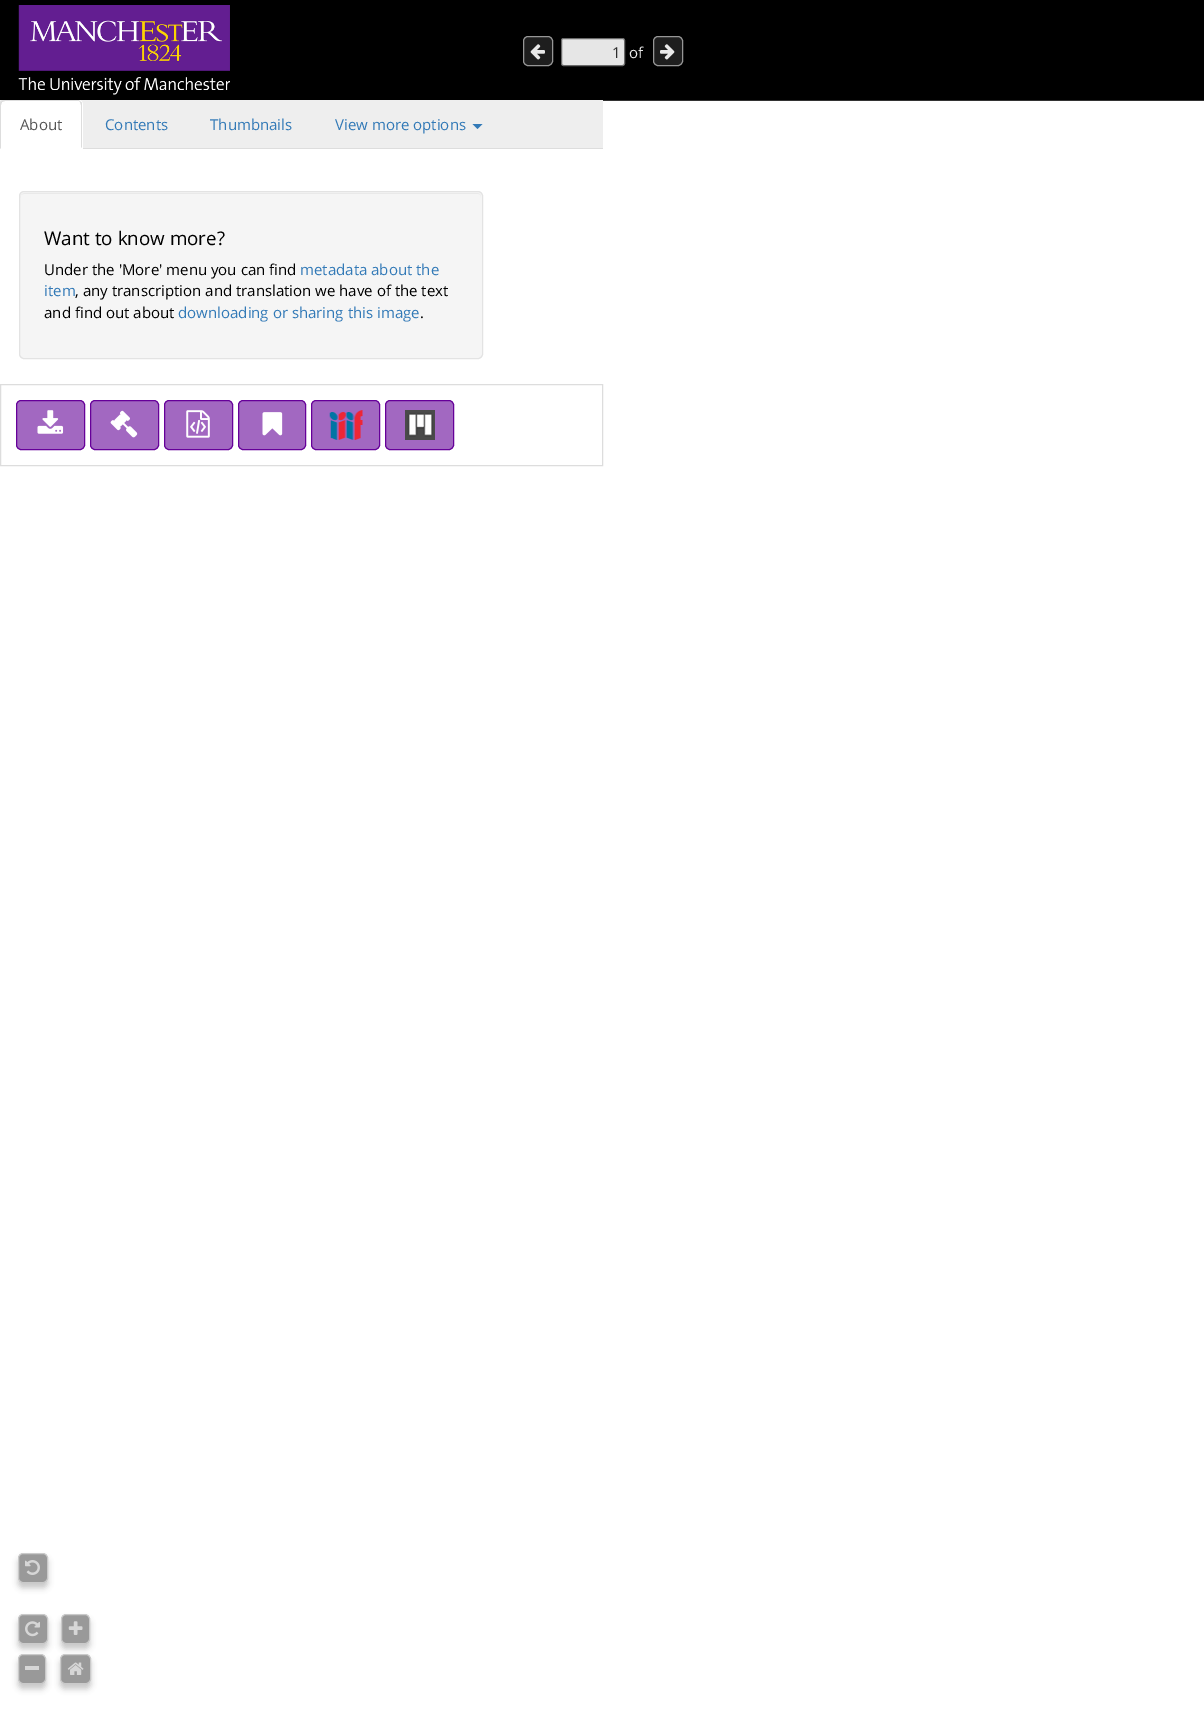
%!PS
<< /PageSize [1204 1735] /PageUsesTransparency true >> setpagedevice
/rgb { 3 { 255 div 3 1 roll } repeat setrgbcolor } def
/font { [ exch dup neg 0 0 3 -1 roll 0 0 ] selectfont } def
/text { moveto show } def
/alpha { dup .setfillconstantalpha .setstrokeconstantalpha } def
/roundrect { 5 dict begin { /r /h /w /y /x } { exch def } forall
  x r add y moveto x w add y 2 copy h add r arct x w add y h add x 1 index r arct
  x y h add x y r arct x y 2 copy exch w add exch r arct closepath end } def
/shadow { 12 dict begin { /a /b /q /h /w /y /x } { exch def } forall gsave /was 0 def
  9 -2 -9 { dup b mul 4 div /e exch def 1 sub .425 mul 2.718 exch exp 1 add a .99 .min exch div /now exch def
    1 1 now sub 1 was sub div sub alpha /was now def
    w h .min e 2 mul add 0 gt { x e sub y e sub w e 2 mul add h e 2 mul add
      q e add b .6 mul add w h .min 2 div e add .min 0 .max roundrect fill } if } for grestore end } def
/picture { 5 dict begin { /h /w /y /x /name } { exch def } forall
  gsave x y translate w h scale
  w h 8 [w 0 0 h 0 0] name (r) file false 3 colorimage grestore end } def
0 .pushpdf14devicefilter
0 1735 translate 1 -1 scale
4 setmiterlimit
255 255 255 rgb
0 0 1204 1735 rectfill
0 0 0 rgb
0 0 1204 100 rectfill
51 51 51 rgb
603 100 601 1 rectfill
(img_01.rgb) 18 5 212 90 picture
30 30 30 rgb
523.5 36.5 29 29 4.5 roundrect gsave fill grestore
150 150 150 rgb
stroke
(img_02.rgb) 530 44 15 16 picture
230 230 230 rgb
561.5 38.5 63 27 2 roundrect gsave fill grestore
106 106 106 rgb
stroke
30 30 30 rgb
653.5 36.5 29 29 4.5 roundrect gsave fill grestore
150 150 150 rgb
stroke
(img_03.rgb) 660 44 15 16 picture
238 238 238 rgb
0 100 603 48 rectfill
221 221 221 rgb
83 148 520 1 rectfill
255 255 255 rgb
5 100 moveto 73 0 rlineto 3 0 5 2 5 5 rcurveto 0 44 rlineto -83 0 rlineto 0 -44 rlineto 0 -3 2 -5 5 -5 rcurveto closepath fill
221 221 221 rgb
5 100 moveto -1 0 -3 0 -4 1 rcurveto 1 1 rlineto 3 -1 rlineto 74 0 rlineto 1 1 rlineto 1 0 rlineto -1 -1 -2 -2 -3 -2 rcurveto closepath fill
81 102 moveto 1 0 1 2 1 3 rcurveto 0 43 rlineto -1 -1 rlineto 0 -42 rlineto -1 -3 rlineto closepath fill
0 149 moveto 1 -1 rlineto 0 -43 rlineto 0 -1 1 -2 1 -3 rcurveto -1 -1 rlineto -1 1 -1 3 -1 4 rcurveto closepath fill
51 122 183 rgb
472.5 124 moveto 10 0 rlineto -5 5 rlineto closepath fill
245 245 245 rgb
19 191 464 168 5 roundrect fill
233 233 233 rgb
24 194 moveto 454 0 rlineto 2 0 3 1 3 4 rcurveto 0 -3 -1 -5 -4 -5 rcurveto -453 0 rlineto -2 1 rlineto -1 1 rlineto -1 3 rlineto 0 -3 2 -4 4 -4 rcurveto closepath fill
227 227 227 rgb
19.5 191.5 463 167 4.5 roundrect stroke
221 221 221 rgb
0.5 384.5 602 81 rectstroke
162 104 193 rgb
16.5 400.5 68 49 4.5 roundrect gsave fill grestore
102 0 153 rgb
stroke
(img_04.rgb) 37 410 27 24 picture
162 104 193 rgb
90.5 400.5 68 49 4.5 roundrect gsave fill grestore
102 0 153 rgb
stroke
(img_05.rgb) 110 410 28 28 picture
162 104 193 rgb
164.5 400.5 68 49 4.5 roundrect gsave fill grestore
102 0 153 rgb
stroke
(img_06.rgb) 186 410 24 28 picture
162 104 193 rgb
238.5 400.5 67 49 4.5 roundrect gsave fill grestore
102 0 153 rgb
stroke
(img_07.rgb) 262 412 21 24 picture
162 104 193 rgb
311.5 400.5 68 49 4.5 roundrect gsave fill grestore
102 0 153 rgb
stroke
(img_08.rgb) 329 410 34 30 picture
162 104 193 rgb
385.5 400.5 68 49 4.5 roundrect gsave fill grestore
102 0 153 rgb
stroke
(img_09.rgb) 405 410 30 30 picture
gsave
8 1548 moveto 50 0 rlineto 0 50 rlineto -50 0 rlineto closepath 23 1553 moveto 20 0 rlineto 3 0 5 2 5 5 rcurveto 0 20 rlineto 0 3 -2 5 -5 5 rcurveto -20 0 rlineto -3 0 -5 -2 -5 -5 rcurveto 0 -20 rlineto 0 -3 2 -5 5 -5 rcurveto closepath eoclip newpath
102 102 102 rgb
18 1558 30 30 5 3 0.35 shadow
grestore
0.8 alpha
127 127 127 rgb
18.5 1553.5 29 29 4.5 roundrect fill
1 alpha
202 202 202 rgb
18.5 1553.5 29 29 4.5 roundrect stroke
(img_10.rgb) 25 1560 15 15 picture
gsave
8 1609 moveto 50 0 rlineto 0 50 rlineto -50 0 rlineto closepath 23 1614 moveto 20 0 rlineto 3 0 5 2 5 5 rcurveto 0 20 rlineto 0 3 -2 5 -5 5 rcurveto -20 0 rlineto -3 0 -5 -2 -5 -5 rcurveto 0 -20 rlineto 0 -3 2 -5 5 -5 rcurveto closepath eoclip newpath
102 102 102 rgb
18 1619 30 30 5 3 0.35 shadow
grestore
0.8 alpha
127 127 127 rgb
18.5 1614.5 29 29 4.5 roundrect fill
1 alpha
202 202 202 rgb
18.5 1614.5 29 29 4.5 roundrect stroke
(img_11.rgb) 25 1621 15 16 picture
gsave
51 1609 moveto 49 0 rlineto 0 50 rlineto -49 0 rlineto closepath 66 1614 moveto 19 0 rlineto 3 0 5 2 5 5 rcurveto 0 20 rlineto 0 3 -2 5 -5 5 rcurveto -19 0 rlineto -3 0 -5 -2 -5 -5 rcurveto 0 -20 rlineto 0 -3 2 -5 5 -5 rcurveto closepath eoclip newpath
102 102 102 rgb
61 1619 29 30 5 3 0.35 shadow
grestore
0.8 alpha
127 127 127 rgb
61.5 1614.5 28 29 4.5 roundrect fill
1 alpha
202 202 202 rgb
61.5 1614.5 28 29 4.5 roundrect stroke
(img_12.rgb) 68 1621 15 14 picture
gsave
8 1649 moveto 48 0 rlineto 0 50 rlineto -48 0 rlineto closepath 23 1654 moveto 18 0 rlineto 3 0 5 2 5 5 rcurveto 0 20 rlineto 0 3 -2 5 -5 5 rcurveto -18 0 rlineto -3 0 -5 -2 -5 -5 rcurveto 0 -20 rlineto 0 -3 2 -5 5 -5 rcurveto closepath eoclip newpath
102 102 102 rgb
18 1659 28 30 5 3 0.35 shadow
grestore
0.8 alpha
127 127 127 rgb
18.5 1654.5 27 29 4.5 roundrect fill
1 alpha
202 202 202 rgb
18.5 1654.5 27 29 4.5 roundrect stroke
214 214 214 rgb
25 1666 14 4 rectfill
gsave
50 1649 moveto 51 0 rlineto 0 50 rlineto -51 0 rlineto closepath 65 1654 moveto 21 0 rlineto 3 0 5 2 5 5 rcurveto 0 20 rlineto 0 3 -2 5 -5 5 rcurveto -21 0 rlineto -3 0 -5 -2 -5 -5 rcurveto 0 -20 rlineto 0 -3 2 -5 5 -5 rcurveto closepath eoclip newpath
102 102 102 rgb
60 1659 31 30 5 3 0.35 shadow
grestore
0.8 alpha
127 127 127 rgb
60.5 1654.5 30 29 4.5 roundrect fill
1 alpha
202 202 202 rgb
60.5 1654.5 30 29 4.5 roundrect stroke
(img_13.rgb) 67 1662 17 13 picture
/OpenSans-Regular 15 font
46 46 46 rgb
(1) 612 58 text
230 230 230 rgb
(of) 629 58 text
85 85 85 rgb
(About) 20 130 text
51 122 183 rgb
(Contents) 105 130 text
(Thumbnails) 210 130 text
(View more options) 335 130 text
/OpenSans-Regular 18.75 font
0 0 0 rgb
(Want to know more?) 44 245 text
/OpenSans-Regular 15 font
(Under the 'More' menu you can find) 44 275 text
51 122 183 rgb
(metadata about the) 300 275 text
(item) 44 296 text
0 0 0 rgb
(, any transcription and translation we have of the text) 75 296 text
(and find out about) 44 318 text
51 122 183 rgb
(downloading or sharing this image) 178 318 text
0 0 0 rgb
(.) 420 318 text
.poppdf14devicefilter showpage
